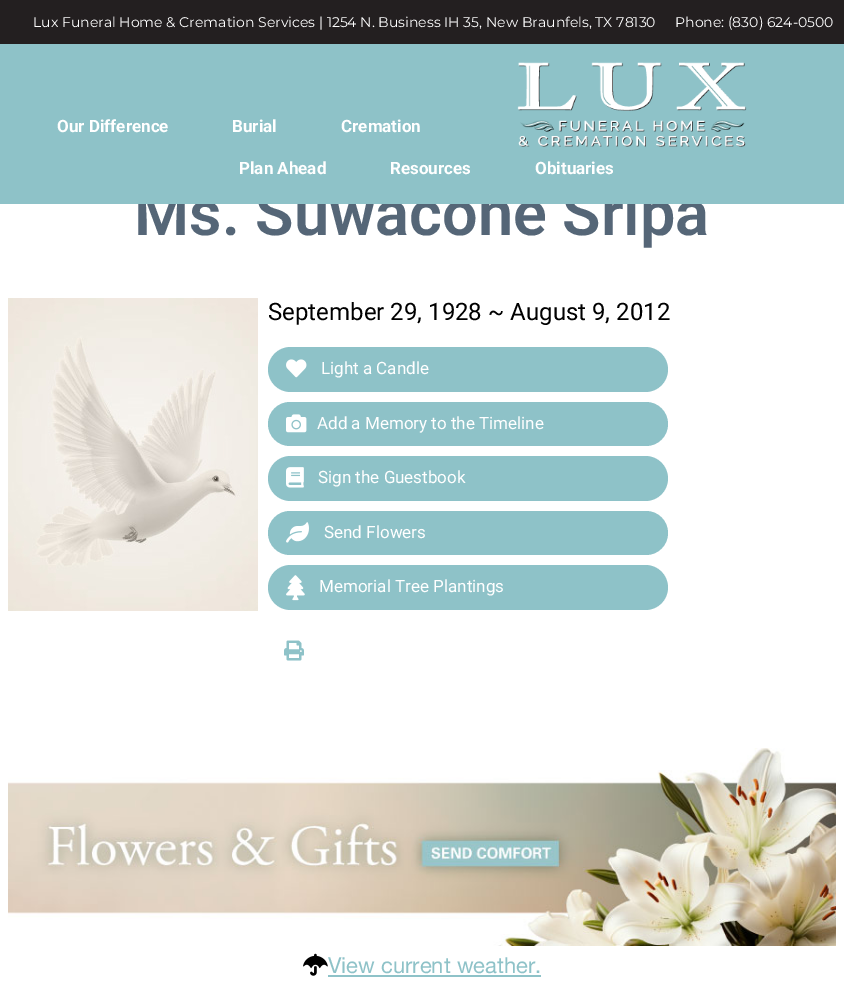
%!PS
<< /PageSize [844 1007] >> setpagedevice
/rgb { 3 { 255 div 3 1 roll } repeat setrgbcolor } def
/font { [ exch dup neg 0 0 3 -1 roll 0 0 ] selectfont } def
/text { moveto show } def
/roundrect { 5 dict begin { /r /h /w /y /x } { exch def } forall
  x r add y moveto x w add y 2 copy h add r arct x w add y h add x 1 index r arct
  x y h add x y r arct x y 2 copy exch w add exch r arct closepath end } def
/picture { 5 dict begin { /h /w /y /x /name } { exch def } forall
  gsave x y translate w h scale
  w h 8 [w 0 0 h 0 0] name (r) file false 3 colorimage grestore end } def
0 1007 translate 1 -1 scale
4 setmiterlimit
255 255 255 rgb
0 0 844 1007 rectfill
35 31 32 rgb
0 0 844 44 rectfill
(img_02.rgb) 8 298 250 313 picture
142 194 200 rgb
268 347 400 45 22.5 roundrect fill
(img_03.rgb) 286 359 21 19 picture
268 402 400 44 22 roundrect fill
(img_04.rgb) 286 414 21 19 picture
268 456 400 45 22.5 roundrect fill
(img_05.rgb) 286 467 18 21 picture
268 511 400 44 22 roundrect fill
(img_06.rgb) 286 522 23 21 picture
268 565 400 45 22.5 roundrect fill
(img_07.rgb) 286 575 19 26 picture
(img_08.rgb) 284 640 20 21 picture
(img_09.rgb) 8 748 828 198 picture
(img_10.rgb) 303 953 25 23 picture
328 975 213 2 rectfill
/Montserrat-Regular 14 font
255 255 255 rgb
(Lux Funeral Home & Cremation Services | 1254 N. Business IH 35, New Braunfels, TX 78130) 33 27 text
(Phone: \(830\) 624-0500) 675 27 text
/Roboto-SemiBold 63 font
85 102 119 rgb
(Ms. Suwacone Sripa) 134 235 text
142 194 200 rgb
0 44 844 160 rectfill
/Roboto-Bold 17 font
255 255 255 rgb
(Obituaries) 535 174 text
(Resources) 390 174 text
(Plan Ahead) 239 174 text
(img_01.rgb) 517 62 230 85 picture
(Cremation) 341 132 text
(Burial) 232 132 text
(Our Difference) 57 132 text
/Roboto-Regular 24 font
0 0 0 rgb
(September 29, 1928 ~ August 9, 2012) 268 320 text
/Roboto-Regular 17 font
255 255 255 rgb
(Light a Candle) 321 374 text
(Add a Memory to the Timeline) 317 429 text
(Sign the Guestbook) 318 483 text
(Send Flowers) 324 538 text
(Memorial Tree Plantings) 319 592 text
/HelveticaNeue-Regular 22 font
142 194 200 rgb
(View current weather.) 328 973 text
showpage
